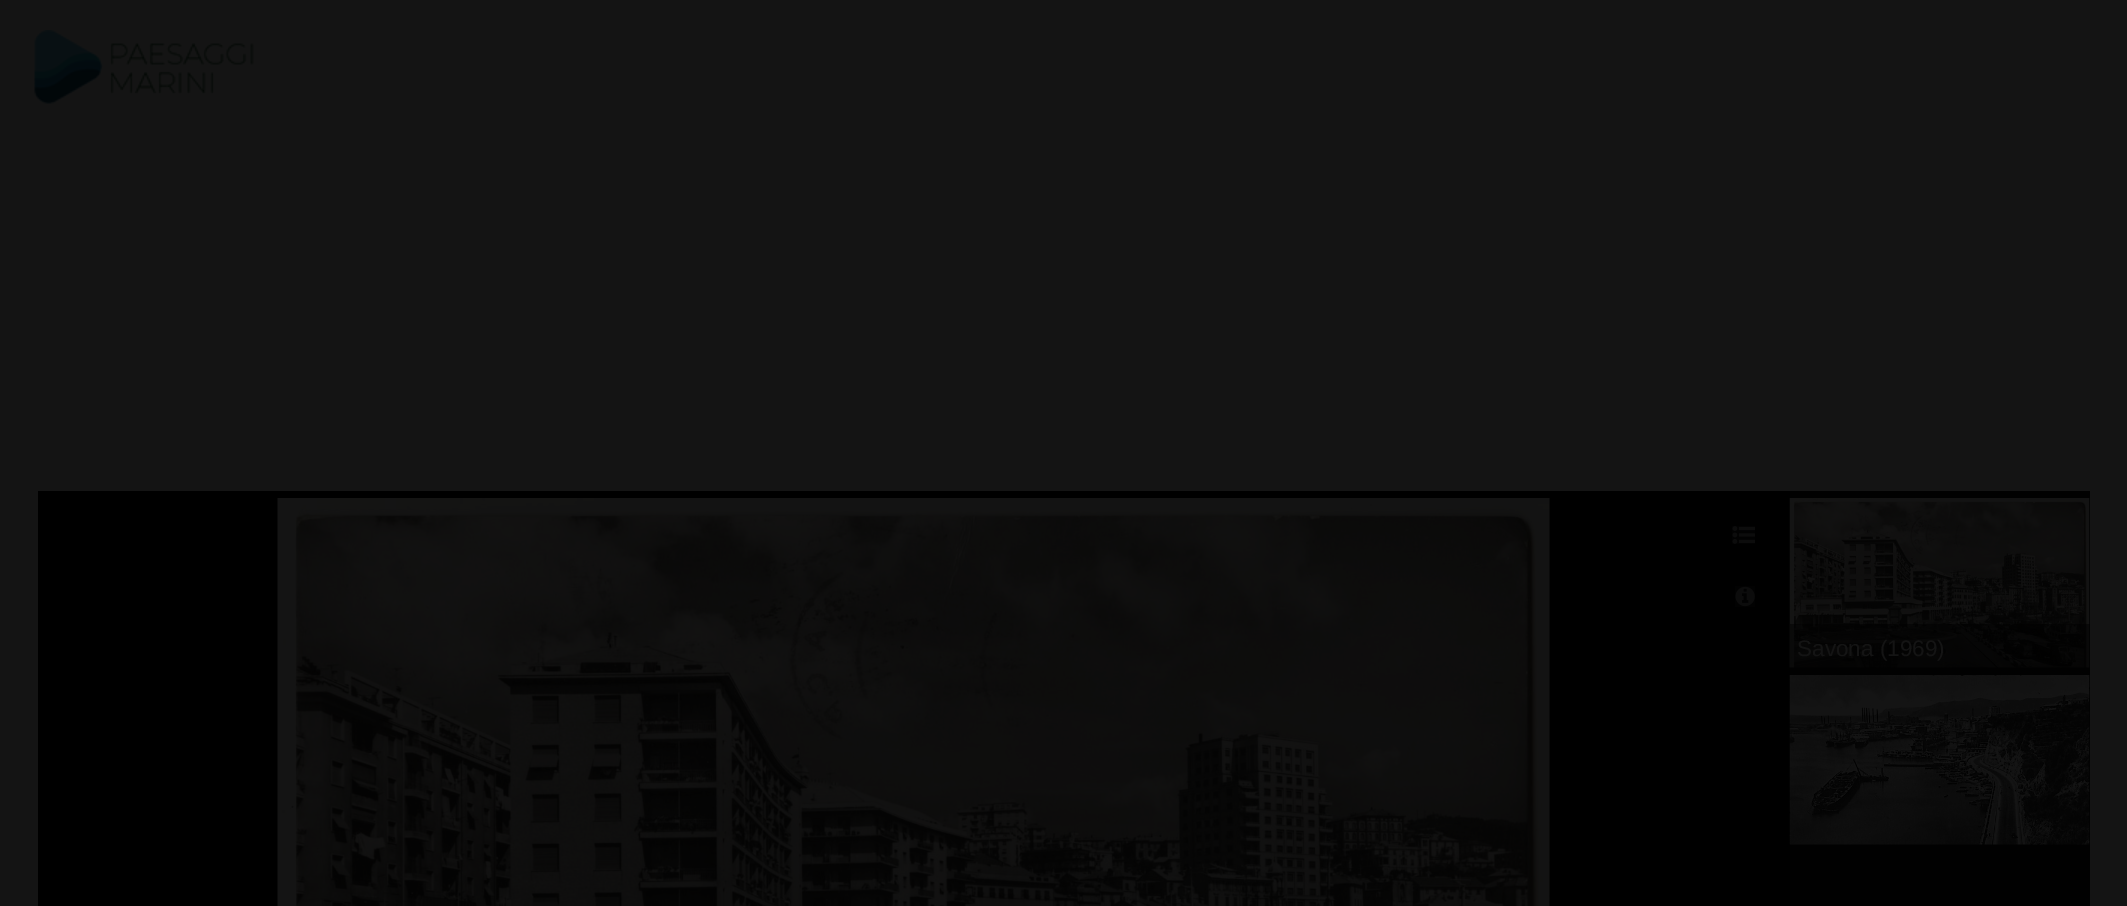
%!PS
<< /PageSize [2127 906] /PageUsesTransparency true >> setpagedevice
/rgb { 3 { 255 div 3 1 roll } repeat setrgbcolor } def
/font { [ exch dup neg 0 0 3 -1 roll 0 0 ] selectfont } def
/text { moveto show } def
/alpha { dup .setfillconstantalpha .setstrokeconstantalpha } def
/picture { 5 dict begin { /h /w /y /x /name } { exch def } forall
  gsave x y translate w h scale
  w h 8 [w 0 0 h 0 0] name (r) file false 3 colorimage grestore end } def
0 .pushpdf14devicefilter
0 906 translate 1 -1 scale
4 setmiterlimit
20 20 20 rgb
0 0 2127 906 rectfill
(img_01.rgb) 34 30 220 74 picture
0 0 0 rgb
38 491 1752 415 rectfill
(img_02.rgb) 277 498 1273 408 picture
(img_03.rgb) 1732 526 23 18 picture
(img_04.rgb) 1735 586 20 21 picture
1 1 1 rgb
1790 491 300 415 rectfill
(img_05.rgb) 1789 498 301 170 picture
0.5 alpha
0 0 0 rgb
1790 624 300 44 rectfill
1 alpha
(img_06.rgb) 1789 675 301 170 picture
/LiberationSans-Regular 22.5 font
20 20 20 rgb
(Savona \(1969\)) 1797 656 text
.poppdf14devicefilter showpage
